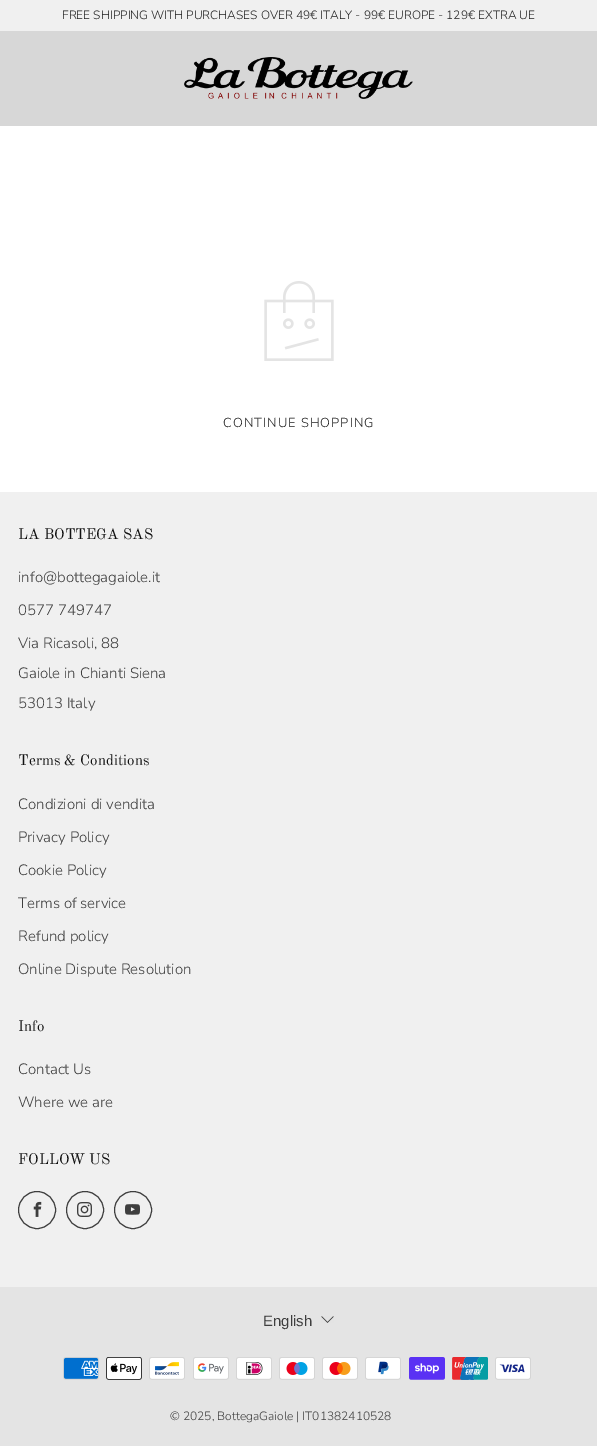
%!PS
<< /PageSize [597 1446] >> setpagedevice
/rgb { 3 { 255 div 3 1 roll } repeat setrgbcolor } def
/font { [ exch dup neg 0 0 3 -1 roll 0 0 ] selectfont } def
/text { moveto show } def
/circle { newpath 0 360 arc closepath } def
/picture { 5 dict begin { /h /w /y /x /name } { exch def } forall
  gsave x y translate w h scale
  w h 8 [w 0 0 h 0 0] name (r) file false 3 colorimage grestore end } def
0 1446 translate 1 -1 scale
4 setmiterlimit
228 228 228 rgb
0 0 597 1446 rectfill
255 255 255 rgb
0 126 597 366 rectfill
240 240 240 rgb
0 0 597 31 rectfill
215 215 215 rgb
0 31 597 95 rectfill
(img_01.rgb) 184 57 229 42 picture
(img_02.rgb) 264 281 70 80 picture
240 240 240 rgb
0 492 597 795 rectfill
62 62 62 rgb
37 1210 18.5 circle stroke
(img_03.rgb) 33 1201 9 16 picture
85 1210 18.5 circle stroke
(img_04.rgb) 77 1202 15 15 picture
133 1210 18.5 circle stroke
(img_05.rgb) 125 1204 15 11 picture
(img_06.rgb) 321 1316 13 7 picture
(img_07.rgb) 63 1357 36 23 picture
(img_08.rgb) 106 1357 36 23 picture
(img_09.rgb) 149 1357 36 23 picture
(img_10.rgb) 193 1357 36 23 picture
(img_11.rgb) 236 1357 36 23 picture
(img_12.rgb) 279 1357 36 23 picture
(img_13.rgb) 322 1357 36 23 picture
(img_14.rgb) 365 1357 36 23 picture
(img_15.rgb) 409 1357 36 23 picture
(img_16.rgb) 452 1357 36 23 picture
(img_17.rgb) 495 1357 36 23 picture
/NunitoSans-Light 12 font
33 33 33 rgb
(FREE SHIPPING WITH PURCHASES OVER 49€ ITALY - 99€ EUROPE - 129€ EXTRA UE) 62 19 text
/NunitoSans-Light 13 font
223 427 moveto 1 0 (CONTINUE SHOPPING) ashow
/OldStandardTT-Regular 15 font
17 17 17 rgb
(LA BOTTEGA SAS) 18 539 text
/NunitoSans-Light 15 font
62 62 62 rgb
(info@bottegagaiole.it) 18 582 text
(0577 749747) 18 615 text
(Via Ricasoli, 88) 18 648 text
(Gaiole in Chianti Siena) 18 678 text
(53013 Italy) 18 708 text
/OldStandardTT-Regular 15 font
17 17 17 rgb
(Terms & Conditions) 18 765 text
/NunitoSans-Light 15 font
62 62 62 rgb
(Condizioni di vendita) 18 809 text
(Privacy Policy) 18 842 text
(Cookie Policy) 18 875 text
(Terms of service) 18 908 text
(Refund policy) 18 941 text
(Online Dispute Resolution) 18 974 text
/OldStandardTT-Regular 15 font
17 17 17 rgb
(Info) 18 1031 text
/NunitoSans-Light 15 font
62 62 62 rgb
(Contact Us) 18 1074 text
(Where we are) 18 1107 text
/OldStandardTT-Regular 15 font
17 17 17 rgb
(FOLLOW US) 18 1164 text
/LiberationSans-Regular 15 font
62 62 62 rgb
(English) 263 1326 text
/NunitoSans-Light 12 font
(© 2025, BottegaGaiole | IT01382410528) 170 1420 text
showpage
